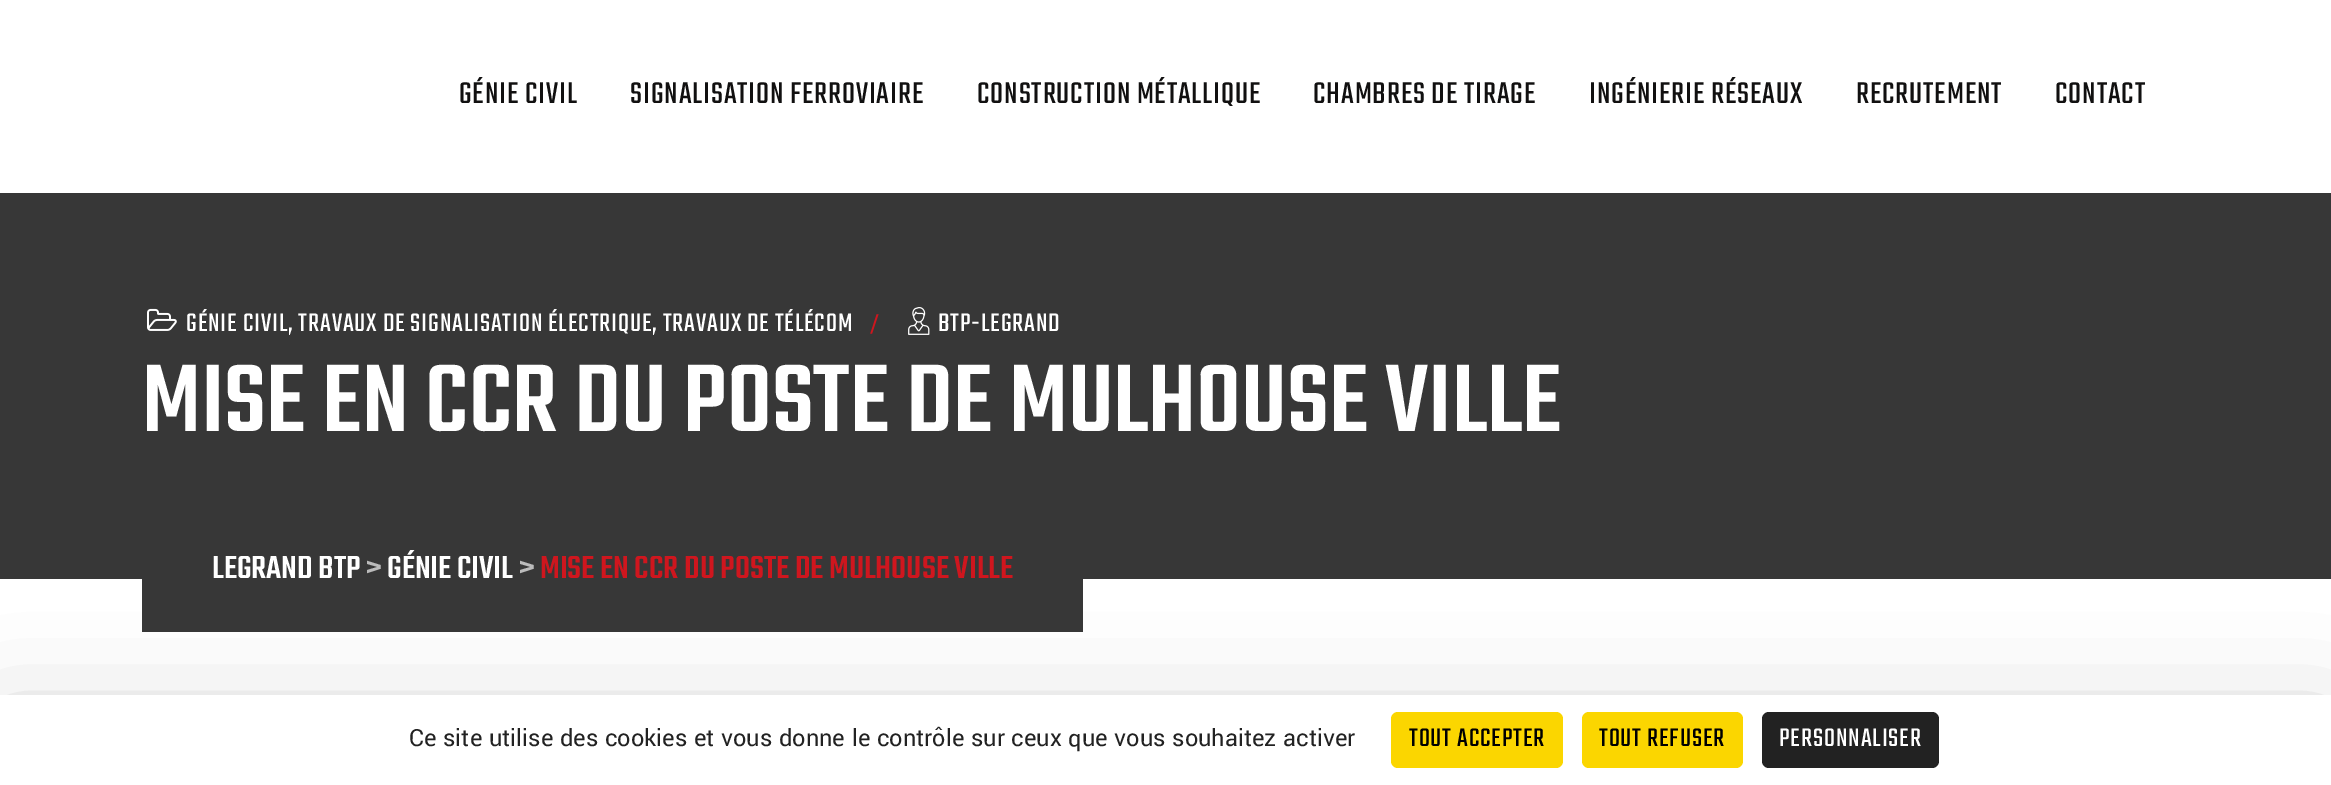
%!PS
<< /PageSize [2331 785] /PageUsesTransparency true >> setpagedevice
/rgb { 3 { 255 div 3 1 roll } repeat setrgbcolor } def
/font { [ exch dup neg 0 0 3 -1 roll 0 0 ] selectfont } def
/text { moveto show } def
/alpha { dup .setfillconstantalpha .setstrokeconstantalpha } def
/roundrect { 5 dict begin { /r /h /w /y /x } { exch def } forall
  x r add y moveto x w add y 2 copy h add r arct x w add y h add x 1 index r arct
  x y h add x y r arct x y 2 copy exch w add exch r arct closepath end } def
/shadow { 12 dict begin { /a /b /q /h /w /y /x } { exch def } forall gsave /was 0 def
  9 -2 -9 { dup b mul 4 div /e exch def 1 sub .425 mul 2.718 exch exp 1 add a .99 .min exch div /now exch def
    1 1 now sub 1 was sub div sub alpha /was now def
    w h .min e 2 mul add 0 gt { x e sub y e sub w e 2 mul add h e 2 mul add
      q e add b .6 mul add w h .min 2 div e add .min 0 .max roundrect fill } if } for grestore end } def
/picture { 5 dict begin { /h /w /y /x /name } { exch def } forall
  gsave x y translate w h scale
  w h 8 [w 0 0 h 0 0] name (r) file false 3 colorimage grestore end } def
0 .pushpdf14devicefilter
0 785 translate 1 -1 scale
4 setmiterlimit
255 255 255 rgb
0 0 2331 785 rectfill
55 55 55 rgb
0 193 2331 386 rectfill
(img_01.rgb) 147 308 30 23 picture
(img_02.rgb) 908 307 22 28 picture
186 509 moveto 897 0 rlineto 0 123 rlineto -941 0 rlineto 0 -79 rlineto 0 -24.5 19.5 -44 44 -44 rcurveto closepath fill
0 0 0 rgb
0 730 2331 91 0 52.5 0.25 shadow
255 255 255 rgb
0 695 2331 90 rectfill
251 214 0 rgb
1391 712 172 56 7 roundrect fill
1582 712 161 56 7 roundrect fill
34 34 34 rgb
1762 712 177 56 7 roundrect fill
/Teko-Regular 33 font
17 16 16 rgb
459 103 moveto 0.88 0 (GÉNIE CIVIL) ashow
630 103 moveto 0.88 0 (SIGNALISATION FERROVIAIRE) ashow
977 103 moveto 0.88 0 (CONSTRUCTION MÉTALLIQUE) ashow
1313 103 moveto 0.88 0 (CHAMBRES DE TIRAGE) ashow
1589 103 moveto 0.88 0 (INGÉNIERIE RÉSEAUX) ashow
1856 103 moveto 0.88 0 (RECRUTEMENT) ashow
2055 103 moveto 0.88 0 (CONTACT) ashow
/Teko-Regular 28 font
255 255 255 rgb
186 331 moveto 0.88 0 (GÉNIE CIVIL, TRAVAUX DE SIGNALISATION ÉLECTRIQUE, TRAVAUX DE TÉLÉCOM) ashow
/Teko-Regular 24 font
207 22 30 rgb
870 331 moveto 0.88 0 (/) ashow
/Teko-Regular 28 font
255 255 255 rgb
938 331 moveto 0.88 0 (BTP-LEGRAND) ashow
/Teko-Medium 105 font
(MISE EN CCR DU POSTE DE MULHOUSE VILLE) 142 431 text
/Teko-Medium 35 font
(LEGRAND BTP) 212 578 text
187 187 187 rgb
(>) 366 578 text
255 255 255 rgb
(GÉNIE CIVIL) 387 578 text
187 187 187 rgb
(>) 519 578 text
207 22 30 rgb
(MISE EN CCR DU POSTE DE MULHOUSE VILLE) 540 578 text
/Yantramanav-Regular 26.25 font
34 34 34 rgb
(Ce site utilise des cookies et vous donne le contrôle sur ceux que vous souhaitez activer) 409 746 text
/Teko-Regular 28 font
0 0 0 rgb
1409 746 moveto 0.88 0 (TOUT ACCEPTER) ashow
1599 746 moveto 0.88 0 (TOUT REFUSER) ashow
255 255 255 rgb
1779 746 moveto 0.88 0 (PERSONNALISER) ashow
.poppdf14devicefilter showpage
